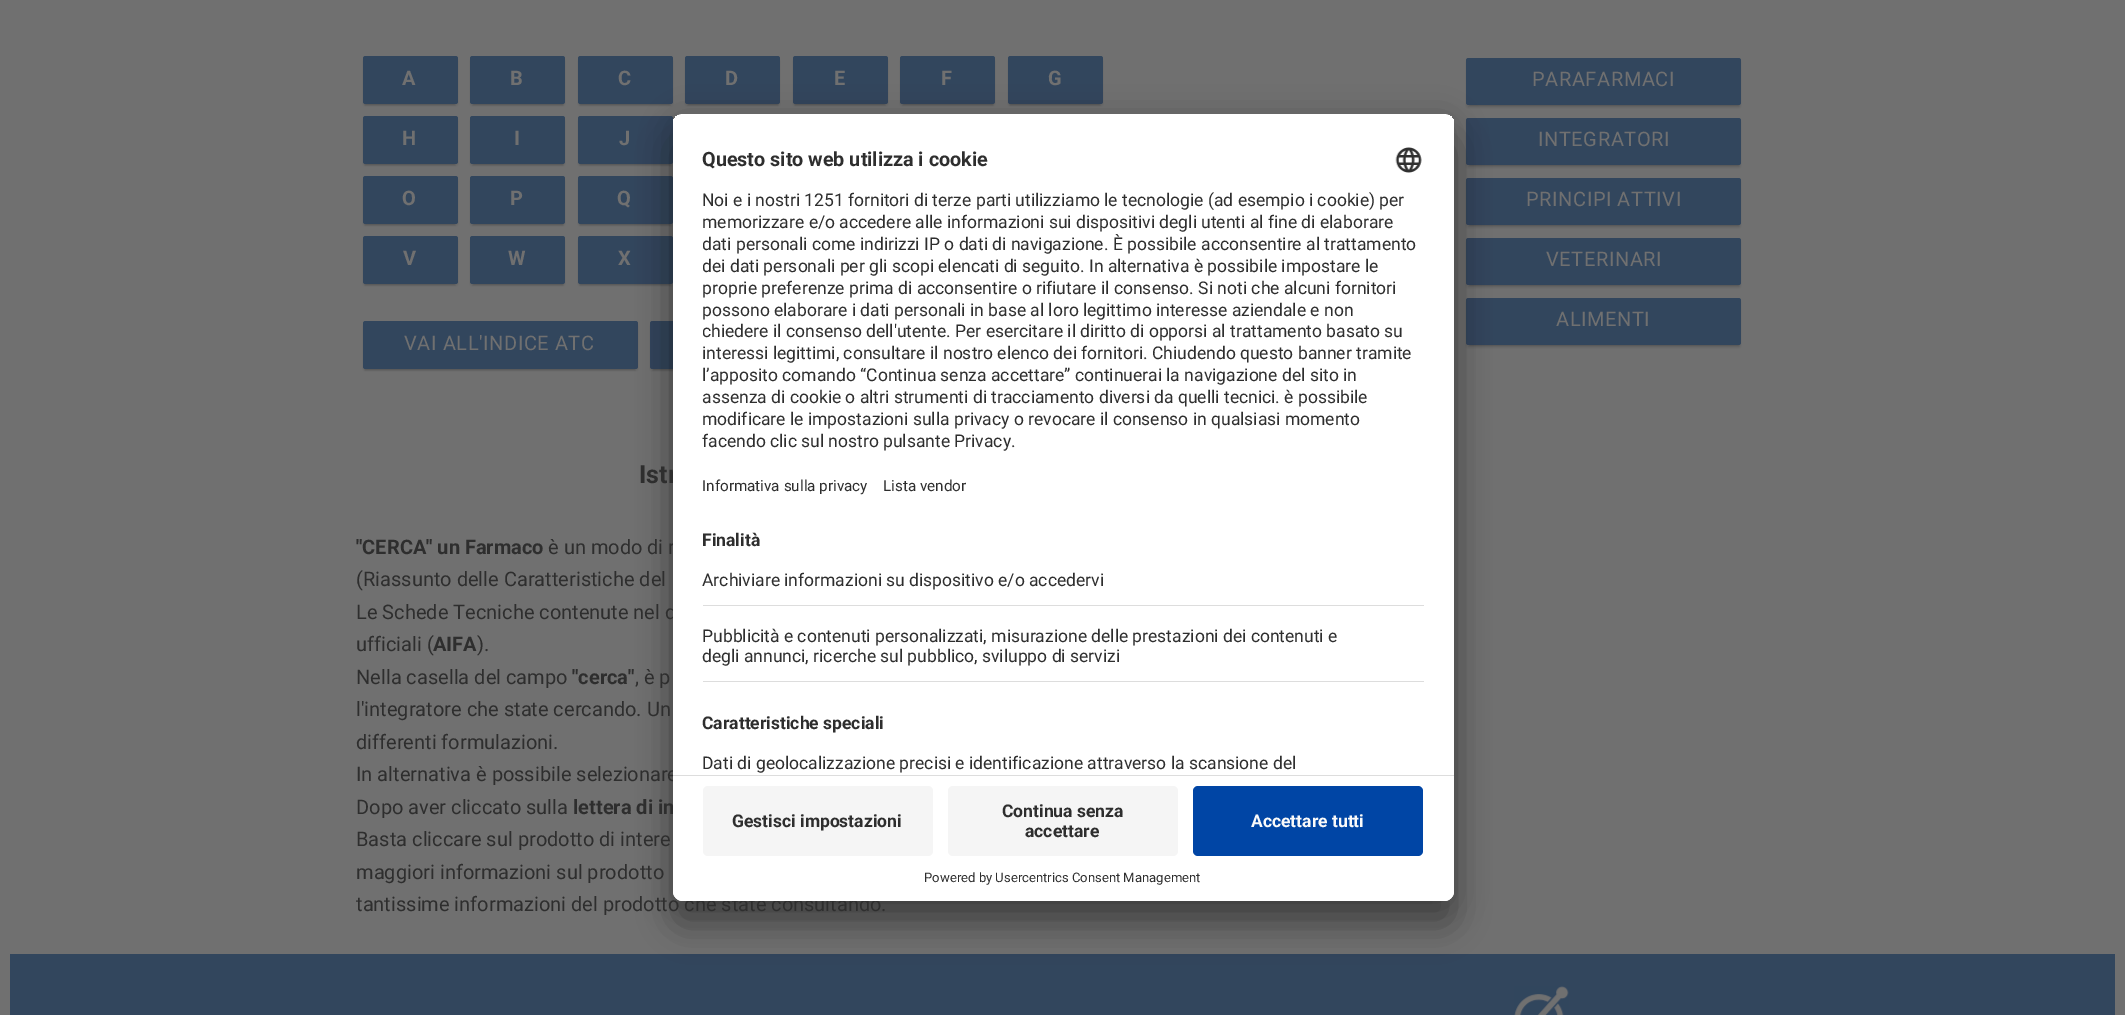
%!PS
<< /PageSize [2125 1015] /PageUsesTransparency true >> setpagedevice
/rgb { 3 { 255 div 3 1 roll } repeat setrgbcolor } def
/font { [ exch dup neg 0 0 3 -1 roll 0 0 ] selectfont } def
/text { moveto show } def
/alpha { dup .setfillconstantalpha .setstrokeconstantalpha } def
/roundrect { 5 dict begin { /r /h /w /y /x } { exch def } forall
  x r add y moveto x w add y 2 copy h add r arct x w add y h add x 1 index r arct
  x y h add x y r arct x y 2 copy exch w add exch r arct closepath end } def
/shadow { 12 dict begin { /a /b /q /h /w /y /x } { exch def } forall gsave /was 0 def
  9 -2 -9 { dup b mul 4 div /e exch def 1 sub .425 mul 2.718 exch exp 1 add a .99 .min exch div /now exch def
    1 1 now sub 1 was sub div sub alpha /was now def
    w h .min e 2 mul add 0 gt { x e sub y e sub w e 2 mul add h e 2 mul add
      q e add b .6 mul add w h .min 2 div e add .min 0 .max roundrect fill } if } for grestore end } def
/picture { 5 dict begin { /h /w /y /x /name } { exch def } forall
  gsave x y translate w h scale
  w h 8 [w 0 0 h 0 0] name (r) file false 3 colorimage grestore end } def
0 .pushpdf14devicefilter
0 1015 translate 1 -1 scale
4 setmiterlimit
112 112 112 rgb
0 0 2125 1015 rectfill
36 36 36 rgb
365 63 90 42 0 0.5 0.2 shadow
363 59 95 47 2.5 1 0.14 shadow
50 70 93 rgb
363 56 95 48 2.5 roundrect fill
36 36 36 rgb
473 63 90 42 0 0.5 0.2 shadow
470 59 95 47 2.5 1 0.14 shadow
50 70 93 rgb
470 56 95 48 2.5 roundrect fill
36 36 36 rgb
580 63 90 42 0 0.5 0.2 shadow
578 59 95 47 2.5 1 0.14 shadow
50 70 93 rgb
578 56 95 48 2.5 roundrect fill
36 36 36 rgb
688 63 90 42 0 0.5 0.2 shadow
685 59 95 47 2.5 1 0.14 shadow
50 70 93 rgb
685 56 95 48 2.5 roundrect fill
36 36 36 rgb
795 63 90 42 0 0.5 0.2 shadow
793 59 95 47 2.5 1 0.14 shadow
50 70 93 rgb
793 56 95 48 2.5 roundrect fill
36 36 36 rgb
903 63 90 42 0 0.5 0.2 shadow
900 59 95 47 2.5 1 0.14 shadow
50 70 93 rgb
900 56 95 48 2.5 roundrect fill
36 36 36 rgb
1010 63 90 42 0 0.5 0.2 shadow
1008 59 95 47 2.5 1 0.14 shadow
50 70 93 rgb
1008 56 95 48 2.5 roundrect fill
36 36 36 rgb
365 123 90 42 0 0.5 0.2 shadow
363 119 95 47 2.5 1 0.14 shadow
50 70 93 rgb
363 116 95 48 2.5 roundrect fill
36 36 36 rgb
473 123 90 42 0 0.5 0.2 shadow
470 119 95 47 2.5 1 0.14 shadow
50 70 93 rgb
470 116 95 48 2.5 roundrect fill
36 36 36 rgb
580 123 90 42 0 0.5 0.2 shadow
578 119 95 47 2.5 1 0.14 shadow
50 70 93 rgb
578 116 95 48 2.5 roundrect fill
36 36 36 rgb
365 183 90 42 0 0.5 0.2 shadow
363 179 95 47 2.5 1 0.14 shadow
50 70 93 rgb
363 176 95 48 2.5 roundrect fill
36 36 36 rgb
473 183 90 42 0 0.5 0.2 shadow
470 179 95 47 2.5 1 0.14 shadow
50 70 93 rgb
470 176 95 48 2.5 roundrect fill
36 36 36 rgb
580 183 90 42 0 0.5 0.2 shadow
578 179 95 47 2.5 1 0.14 shadow
50 70 93 rgb
578 176 95 48 2.5 roundrect fill
36 36 36 rgb
365 243 90 42 0 0.5 0.2 shadow
363 239 95 47 2.5 1 0.14 shadow
50 70 93 rgb
363 236 95 48 2.5 roundrect fill
36 36 36 rgb
473 243 90 42 0 0.5 0.2 shadow
470 239 95 47 2.5 1 0.14 shadow
50 70 93 rgb
470 236 95 48 2.5 roundrect fill
36 36 36 rgb
580 243 90 42 0 0.5 0.2 shadow
578 239 95 47 2.5 1 0.14 shadow
50 70 93 rgb
578 236 95 48 2.5 roundrect fill
36 36 36 rgb
365 328 270 42 0 0.5 0.2 shadow
363 324 275 47 2.5 1 0.14 shadow
50 70 93 rgb
363 321 275 48 2.5 roundrect fill
36 36 36 rgb
653 328 345 42 0 0.5 0.2 shadow
650 324 350 47 2.5 1 0.14 shadow
50 70 93 rgb
650 321 350 48 2.5 roundrect fill
36 36 36 rgb
1469 64 270 42 0 0.5 0.2 shadow
1466 60 275 48 2.5 1 0.14 shadow
50 70 93 rgb
1466 58 275 47 2.5 roundrect fill
36 36 36 rgb
1469 124 270 42 0 0.5 0.2 shadow
1466 120 275 48 2.5 1 0.14 shadow
50 70 93 rgb
1466 118 275 47 2.5 roundrect fill
36 36 36 rgb
1469 184 270 42 0 0.5 0.2 shadow
1466 180 275 48 2.5 1 0.14 shadow
50 70 93 rgb
1466 178 275 47 2.5 roundrect fill
36 36 36 rgb
1469 244 270 42 0 0.5 0.2 shadow
1466 240 275 48 2.5 1 0.14 shadow
50 70 93 rgb
1466 238 275 47 2.5 roundrect fill
36 36 36 rgb
1469 304 270 42 0 0.5 0.2 shadow
1466 300 275 48 2.5 1 0.14 shadow
50 70 93 rgb
1466 298 275 47 2.5 roundrect fill
10 954 2105 61 rectfill
(img_01.rgb) 1514 986 55 29 picture
0 0 0 rgb
673 139 781 787 10 17.5 0.3 shadow
673 120 781 788 10 16 0.22 shadow
/Roboto-Bold 20 font
112 112 112 rgb
402 85 moveto 0.6 0 (A) ashow
510 85 moveto 0.6 0 (B) ashow
618 85 moveto 0.6 0 (C) ashow
725 85 moveto 0.6 0 (D) ashow
834 85 moveto 0.6 0 (E) ashow
941 85 moveto 0.6 0 (F) ashow
1048 85 moveto 0.6 0 (G) ashow
402 145 moveto 0.6 0 (H) ashow
514 145 moveto 0.6 0 (I) ashow
619 145 moveto 0.6 0 (J) ashow
402 205 moveto 0.6 0 (O) ashow
510 205 moveto 0.6 0 (P) ashow
617 205 moveto 0.6 0 (Q) ashow
403 265 moveto 0.6 0 (V) ashow
508 265 moveto 0.6 0 (W) ashow
618 265 moveto 0.6 0 (X) ashow
/Roboto-Regular 20 font
404 350 moveto 0.6 0 (VAI ALL'INDICE ATC) ashow
1532 86 moveto 0.6 0 (PARAFARMACI) ashow
1538 146 moveto 0.6 0 (INTEGRATORI) ashow
1526 206 moveto 0.6 0 (PRINCIPI ATTIVI) ashow
1546 266 moveto 0.6 0 (VETERINARI) ashow
1556 326 moveto 0.6 0 (ALIMENTI) ashow
/Roboto-Bold 25 font
46 46 46 rgb
(Istr) 639 483 text
/Roboto-Bold 20 font
("CERCA" un Farmaco) 356 554 text
/Roboto-Regular 20 font
(è un modo di r) 548 554 text
(\(Riassunto delle Caratteristiche del) 356 586 text
(Le Schede Tecniche contenute nel d) 356 619 text
(ufficiali \() 356 651 text
/Roboto-Bold 20 font
(AIFA) 433 651 text
/Roboto-Regular 20 font
(\).) 477 651 text
(Nella casella del campo) 356 684 text
/Roboto-Bold 20 font
("cerca") 572 684 text
/Roboto-Regular 20 font
(, è p) 635 684 text
(l'integratore che state cercando. Un) 356 716 text
(differenti formulazioni.) 356 749 text
(In alternativa è possibile selezionare) 356 781 text
(Dopo aver cliccato sulla) 356 814 text
/Roboto-Bold 20 font
(lettera di in) 573 814 text
/Roboto-Regular 20 font
(Basta cliccare sul prodotto di intere) 356 846 text
(maggiori informazioni sul prodotto) 356 879 text
(tantissime informazioni del prodotto che state consultando.) 356 911 text
255 255 255 rgb
673 114 781 787 10 roundrect fill
gsave
673 114 781 787 10 roundrect clip newpath
683 114 moveto 761 0 rlineto 5.5 0 10 4.5 10 10 rcurveto 0 651 rlineto -781 0 rlineto 0 -651 rlineto 0 -5.5 4.5 -10 10 -10 rcurveto closepath clip newpath
673 115 781 660 rectfill
673 115 781 400 rectfill
grestore
/Roboto-Bold 19.75 font
46 46 46 rgb
(Questo sito web utilizza i cookie) 702 166 text
(img_02.rgb) 1395 147 27 26 picture
/Roboto-Regular 17.5 font
(Noi e i nostri 1251 fornitori di terze parti utilizziamo le tecnologie \(ad esempio i cookie\) per) 702 206 text
(memorizzare e/o accedere alle informazioni sui dispositivi degli utenti al fine di elaborare) 702 228 text
gsave
703 185 721 273 rectclip
(dati personali come indirizzi IP o dati di navigazione. È possibile acconsentire al trattamento) 702 250 text
(dei dati personali per gli scopi elencati di seguito. In alternativa è possibile impostare le) 702 272 text
grestore
(proprie preferenze prima di acconsentire o rifiutare il consenso. Si noti che alcuni fornitori) 702 294 text
(possono elaborare i dati personali in base al loro legittimo interesse aziendale e non) 702 316 text
gsave
703 185 721 273 rectclip
(chiedere il consenso dell'utente. Per esercitare il diritto di opporsi al trattamento basato su) 702 337 text
grestore
(interessi legittimi, consultare il nostro elenco dei fornitori. Chiudendo questo banner tramite) 702 359 text
(l’apposito comando “Continua senza accettare” continuerai la navigazione del sito in) 702 381 text
(assenza di cookie o altri strumenti di tracciamento diversi da quelli tecnici. è possibile) 702 403 text
(modificare le impostazioni sulla privacy o revocare il consenso in qualsiasi momento) 702 425 text
(facendo clic sul nostro pulsante Privacy.) 702 447 text
/Roboto-Regular 15.25 font
(Informativa sulla privacy) 702 491 text
(Lista vendor) 883 491 text
/Roboto-Bold 17.5 font
(Finalità) 702 546 text
221 221 221 rgb
703 605 721 1 rectfill
/Roboto-Regular 17.5 font
46 46 46 rgb
(Archiviare informazioni su dispositivo e/o accedervi) 702 586 text
221 221 221 rgb
703 681 721 1 rectfill
46 46 46 rgb
(Pubblicità e contenuti personalizzati, misurazione delle prestazioni dei contenuti e) 702 642 text
(degli annunci, ricerche sul pubblico, sviluppo di servizi) 702 662 text
/Roboto-Bold 17.5 font
(Caratteristiche speciali) 702 729 text
/Roboto-Regular 17.5 font
(Dati di geolocalizzazione precisi e identificazione attraverso la scansione del) 702 769 text
255 255 255 rgb
673 775 moveto 781 0 rlineto 0 116 rlineto 0 5.5 -4.5 10 -10 10 rcurveto -761 0 rlineto -5.5 0 -10 -4.5 -10 -10 rcurveto closepath fill
221 221 221 rgb
673 775 781 1 rectfill
245 245 245 rgb
703 786 230 70 5 roundrect fill
/Roboto-Bold 17.5 font
46 46 46 rgb
(Gestisci impostazioni) 732 827 text
245 245 245 rgb
948 786 230 70 5 roundrect fill
46 46 46 rgb
(Continua senza) 1002 817 text
(accettare) 1025 837 text
0 69 165 rgb
1193 786 230 70 5 roundrect fill
250 250 250 rgb
(Accettare tutti) 1251 827 text
/Roboto-Regular 13.1 font
46 46 46 rgb
(Powered by Usercentrics Consent Management) 924 882 text
.poppdf14devicefilter showpage
